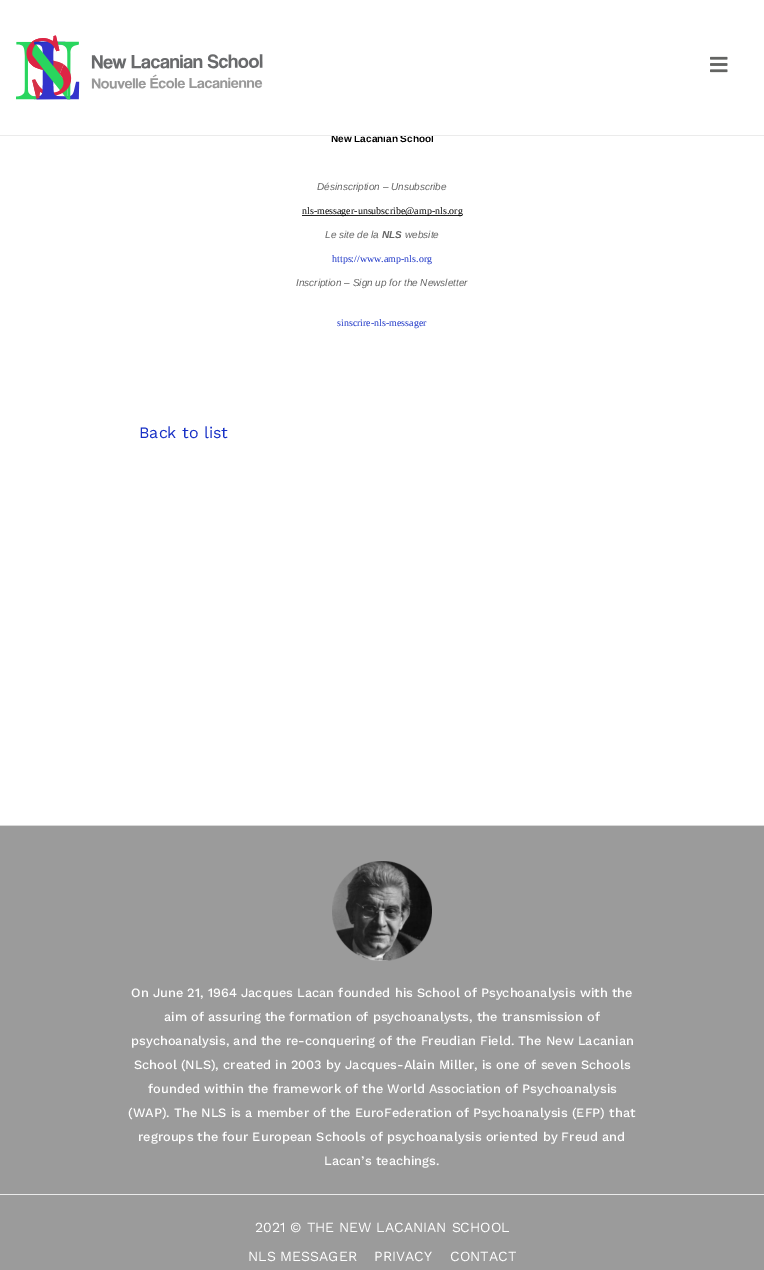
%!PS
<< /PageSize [764 1270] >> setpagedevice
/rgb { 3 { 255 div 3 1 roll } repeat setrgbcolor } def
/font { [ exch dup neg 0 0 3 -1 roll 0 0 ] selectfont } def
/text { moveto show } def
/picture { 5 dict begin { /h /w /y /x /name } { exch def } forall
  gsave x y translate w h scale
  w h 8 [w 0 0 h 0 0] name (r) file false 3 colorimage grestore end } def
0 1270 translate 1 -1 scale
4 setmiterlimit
255 255 255 rgb
0 0 764 1270 rectfill
(img_01.rgb) 16 35 247 65 picture
(img_02.rgb) 710 56 18 17 picture
34 34 34 rgb
302 215 160 1 rectfill
155 155 155 rgb
0 826 764 368 rectfill
216 216 216 rgb
0 825 764 1 rectfill
(img_03.rgb) 332 861 100 100 picture
155 155 155 rgb
0 1195 764 75 rectfill
235 235 235 rgb
0 1194 764 1 rectfill
/LiberationSans-Bold 10 font
0 0 0 rgb
(New Lacanian School) 331 142 text
235 235 235 rgb
0 135 764 1 rectfill
255 255 255 rgb
383 134 50 1 rectfill
/LiberationSans-Italic 10 font
102 102 102 rgb
(Désinscription – Unsubscribe) 317 190 text
/LiberationSerif-Regular 10 font
0 0 0 rgb
(nls-messager-unsubscribe@amp-nls.org) 302 214 text
/LiberationSans-Italic 10 font
102 102 102 rgb
(Le site de la) 325 238 text
/LiberationSans-BoldItalic 10 font
(NLS) 382 238 text
/LiberationSans-Italic 10 font
(website) 405 238 text
/LiberationSerif-Regular 10 font
23 48 198 rgb
(https://www.amp-nls.org) 332 262 text
/LiberationSans-Italic 10 font
102 102 102 rgb
(Inscription – Sign up for the Newsletter) 296 286 text
/LiberationSerif-Regular 10 font
23 48 198 rgb
(sinscrire-nls-messager) 337 326 text
/WorkSans-Regular 16 font
(Back to list) 139 438 text
/WorkSans-Medium 12.8 font
255 255 255 rgb
(On June 21, 1964 Jacques Lacan founded his School of Psychoanalysis with the) 131 997 text
(aim of assuring the formation of psychoanalysts, the transmission of) 164 1021 text
(psychoanalysis, and the re-conquering of the Freudian Field. The New Lacanian) 131 1045 text
(School \(NLS\), created in 2003 by Jacques-Alain Miller, is one of seven Schools) 134 1069 text
(founded within the framework of the World Association of Psychoanalysis) 148 1093 text
(\(WAP\). The NLS is a member of the EuroFederation of Psychoanalysis \(EFP\) that) 128 1117 text
(regroups the four European Schools of psychoanalysis oriented by Freud and) 138 1141 text
(Lacan’s teachings.) 324 1165 text
/WorkSans-Regular 14 font
(2021 © THE NEW LACANIAN SCHOOL) 255 1232 text
(NLS MESSAGER) 248 1261 text
(PRIVACY) 374 1261 text
(CONTACT) 450 1261 text
showpage
